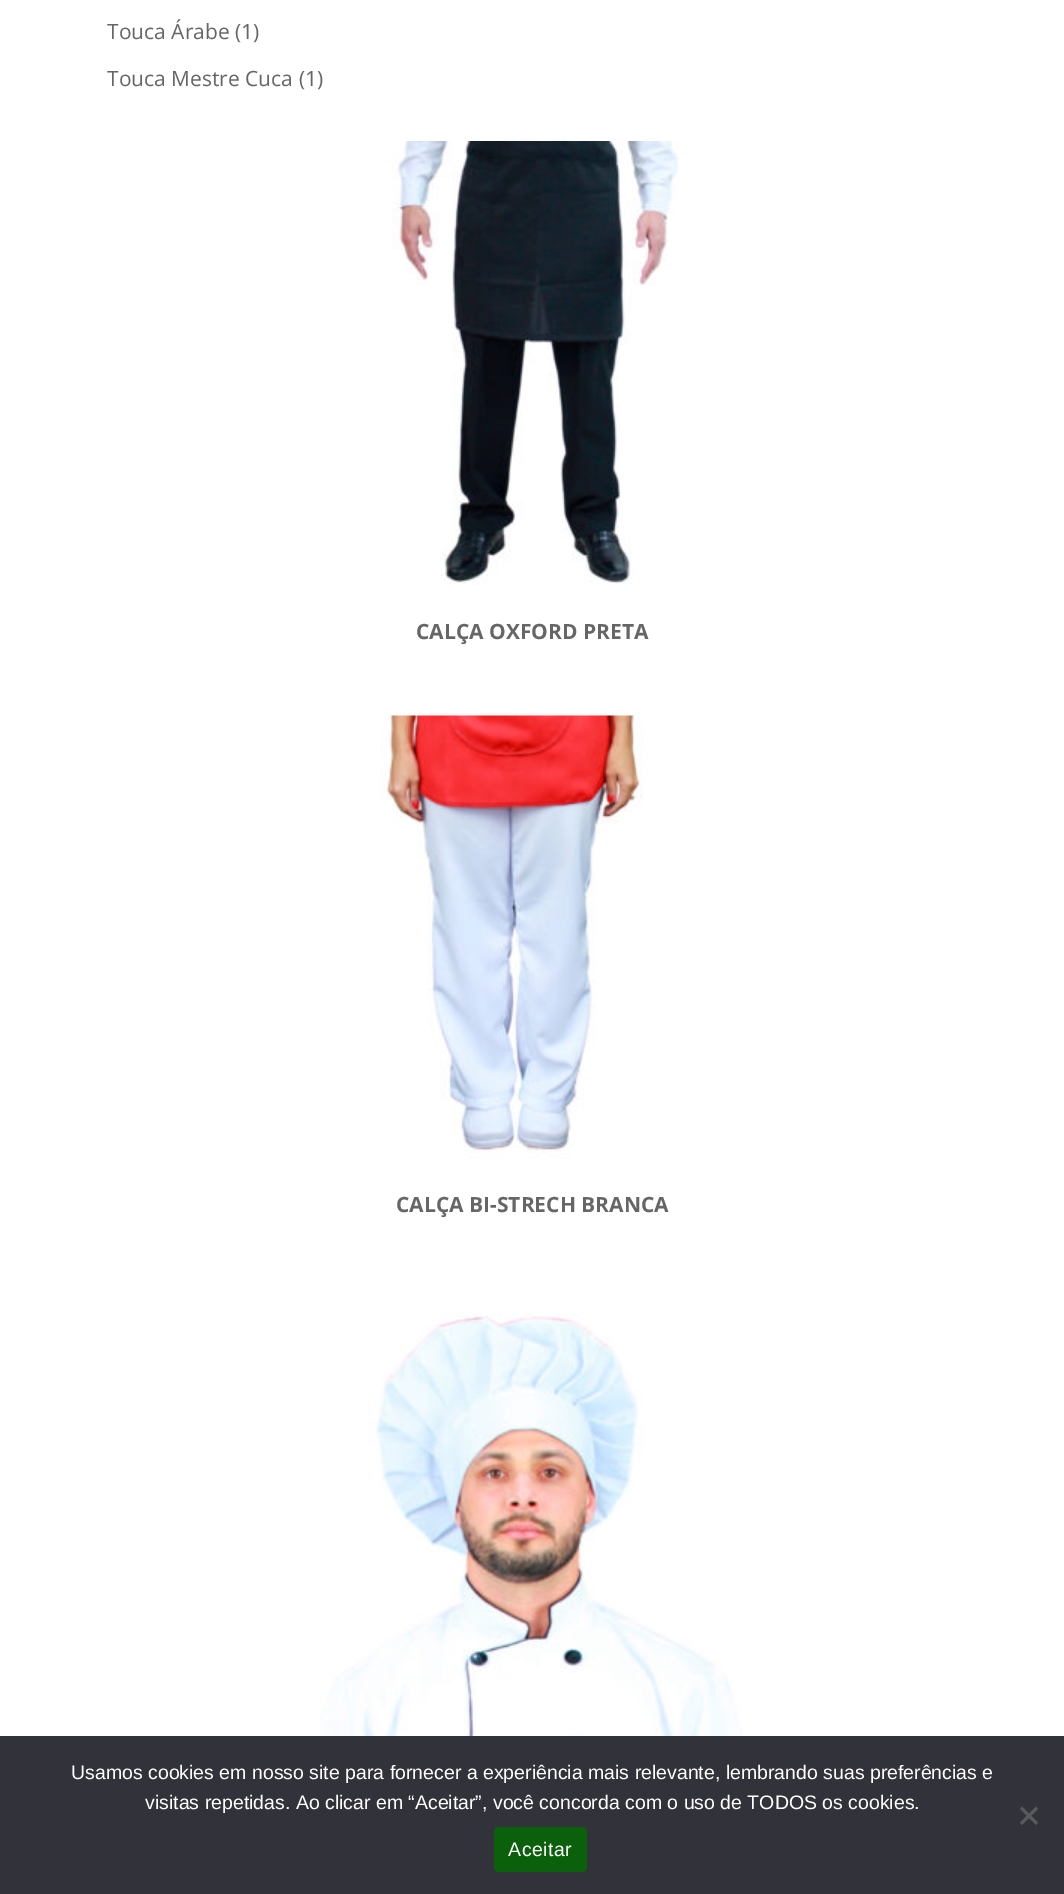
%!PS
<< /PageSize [1064 1894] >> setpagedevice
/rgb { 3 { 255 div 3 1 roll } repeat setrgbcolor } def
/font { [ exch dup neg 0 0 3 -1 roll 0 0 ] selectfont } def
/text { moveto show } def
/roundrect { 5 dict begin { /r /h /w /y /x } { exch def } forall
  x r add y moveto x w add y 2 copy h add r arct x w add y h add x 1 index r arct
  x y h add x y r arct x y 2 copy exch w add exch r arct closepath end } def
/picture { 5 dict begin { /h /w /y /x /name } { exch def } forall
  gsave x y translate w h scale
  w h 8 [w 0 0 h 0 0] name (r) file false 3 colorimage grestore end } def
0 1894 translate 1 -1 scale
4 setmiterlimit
255 255 255 rgb
0 0 1064 1894 rectfill
(img_01.rgb) 392 141 287 444 picture
(img_02.rgb) 380 715 264 444 picture
(img_03.rgb) 320 1313 423 423 picture
50 50 58 rgb
0 1736 1064 158 rectfill
89 89 93 rgb
1036 1806.5 moveto 2 2.5 rlineto -16 16 rlineto -2 -2.5 rlineto closepath fill
1020 1809 moveto 2 -2.5 rlineto 16 16 rlineto -2 2.5 rlineto closepath fill
11 97 11 rgb
494 1827 93 45 5 roundrect fill
/OpenSans-Regular 21 font
102 102 102 rgb
(Touca Árabe \(1\)) 107 39 text
(Touca Mestre Cuca \(1\)) 107 86 text
/OpenSans-Bold 21 font
(CALÇA OXFORD PRETA) 416 639 text
(CALÇA BI-STRECH BRANCA) 396 1212 text
/LiberationSans-Regular 19.5 font
255 255 255 rgb
(Usamos cookies em nosso site para fornecer a experiência mais relevante, lembrando suas preferências e) 71 1779 text
(visitas repetidas. Ao clicar em “Aceitar”, você concorda com o uso de TODOS os cookies.) 145 1809 text
508 1856 moveto 0.5 0 (Aceitar) ashow
showpage
